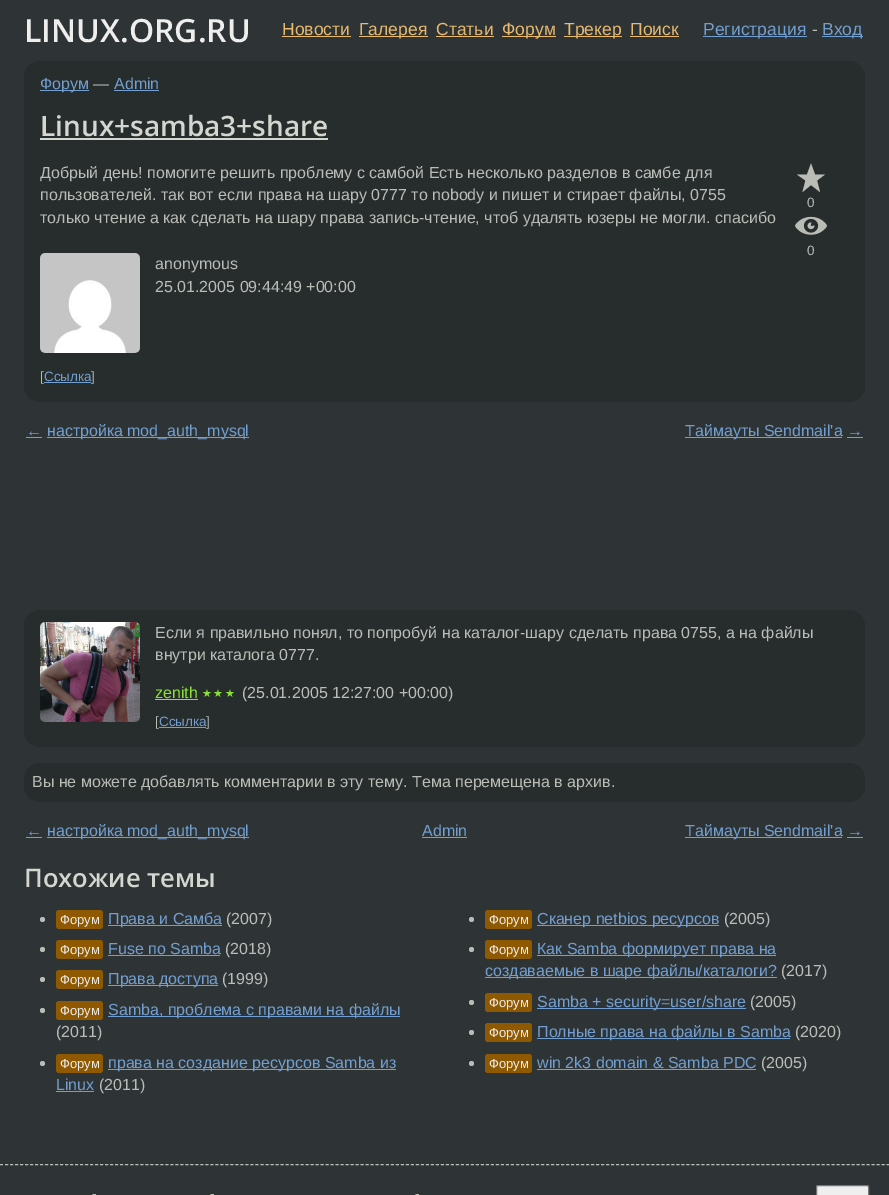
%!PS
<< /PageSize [889 1195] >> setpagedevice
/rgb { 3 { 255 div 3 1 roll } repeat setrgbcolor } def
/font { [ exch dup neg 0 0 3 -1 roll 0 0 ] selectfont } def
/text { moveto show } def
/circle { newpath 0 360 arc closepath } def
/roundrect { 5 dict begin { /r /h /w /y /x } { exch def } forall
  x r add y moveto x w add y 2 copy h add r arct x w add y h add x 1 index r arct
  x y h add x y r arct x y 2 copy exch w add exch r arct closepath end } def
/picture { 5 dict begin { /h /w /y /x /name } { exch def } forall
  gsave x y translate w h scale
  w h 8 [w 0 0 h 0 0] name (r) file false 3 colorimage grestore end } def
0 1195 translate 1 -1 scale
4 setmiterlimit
46 52 54 rgb
0 0 889 1195 rectfill
233 185 110 rgb
282 36 69 1 rectfill
359 36 69 1 rectfill
436 36 58 1 rectfill
502 36 54 1 rectfill
564 36 58 1 rectfill
630 36 49 1 rectfill
114 159 207 rgb
703 36 104 1 rectfill
822 36 41 1 rectfill
39 44 45 rgb
24 61 841 341 16 roundrect fill
114 159 207 rgb
40 90 49 1 rectfill
114 90 45 1 rectfill
211 215 207 rgb
40 138 288 2 rectfill
186 189 182 rgb
811 163.5 moveto 4 11 rlineto 10 0 rlineto -8 6 rlineto 3 11.5 rlineto -9 -7 rlineto -8.5 7 rlineto 3 -11.5 rlineto -8.5 -6 rlineto 10 0 rlineto closepath fill
(img_01.rgb) 795 216 32 19 picture
(img_02.rgb) 40 253 100 100 picture
114 159 207 rgb
44 382 47 1 rectfill
26 437 16 1 rectfill
47 437 202 1 rectfill
685 437 157 1 rectfill
847 437 16 1 rectfill
39 44 45 rgb
24 610 841 137 16 roundrect fill
(img_03.rgb) 40 622 100 100 picture
138 226 52 rgb
155 699 43 1 rectfill
114 159 207 rgb
159 727 47 1 rectfill
39 44 45 rgb
24 763 841 39 16 roundrect fill
114 159 207 rgb
26 837 16 1 rectfill
47 837 202 1 rectfill
422 837 45 1 rectfill
685 837 157 1 rectfill
847 837 16 1 rectfill
186 189 182 rgb
42.5 919.5 2.5 circle fill
143 89 2 rgb
56 910 47 19 3 roundrect fill
114 159 207 rgb
108 925 114 1 rectfill
186 189 182 rgb
42.5 949.5 2.5 circle fill
143 89 2 rgb
56 940 47 19 3 roundrect fill
114 159 207 rgb
108 955 112 1 rectfill
186 189 182 rgb
42.5 979.5 2.5 circle fill
143 89 2 rgb
56 970 47 19 3 roundrect fill
114 159 207 rgb
108 985 110 1 rectfill
186 189 182 rgb
42.5 1010.5 2.5 circle fill
143 89 2 rgb
56 1001 47 19 3 roundrect fill
114 159 207 rgb
108 1016 292 1 rectfill
186 189 182 rgb
42.5 1063.5 2.5 circle fill
143 89 2 rgb
56 1054 47 19 3 roundrect fill
114 159 207 rgb
108 1069 288 1 rectfill
56 1091 38 1 rectfill
186 189 182 rgb
471.5 919.5 2.5 circle fill
143 89 2 rgb
485 910 47 19 3 roundrect fill
114 159 207 rgb
537 925 182 1 rectfill
186 189 182 rgb
471.5 949.5 2.5 circle fill
143 89 2 rgb
485 940 47 19 3 roundrect fill
114 159 207 rgb
537 955 239 1 rectfill
485 977 292 1 rectfill
186 189 182 rgb
471.5 1002.5 2.5 circle fill
143 89 2 rgb
485 993 47 19 3 roundrect fill
114 159 207 rgb
537 1008 209 1 rectfill
186 189 182 rgb
471.5 1032.5 2.5 circle fill
143 89 2 rgb
485 1023 47 19 3 roundrect fill
114 159 207 rgb
537 1038 253 1 rectfill
186 189 182 rgb
471.5 1063.5 2.5 circle fill
143 89 2 rgb
485 1054 47 19 3 roundrect fill
114 159 207 rgb
537 1069 219 1 rectfill
186 189 182 rgb
[3 2.01] 0 setdash
0 1164.5 moveto 889 0 rlineto stroke
239 239 239 rgb
816.5 1185.5 52 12 1.5 roundrect gsave fill grestore
118 118 118 rgb
[] 0 setdash
stroke
/OpenSans-SemiBold 32 font
238 238 236 rgb
(LINUX.ORG.RU) 24 42 text
/LiberationSans-Regular 17.5 font
233 185 110 rgb
(Новости) 282 35 text
(Галерея) 359 35 text
(Статьи) 436 35 text
(Форум) 502 35 text
(Трекер) 564 35 text
(Поиск) 630 35 text
114 159 207 rgb
(Регистрация) 703 35 text
186 189 182 rgb
(-) 812 35 text
114 159 207 rgb
(Вход) 822 35 text
/LiberationSans-Regular 16 font
(Форум) 40 89 text
186 189 182 rgb
(—) 93 89 text
114 159 207 rgb
(Admin) 114 89 text
/OpenSans-SemiBold 28 font
211 215 207 rgb
(Linux+samba3+share) 40 136 text
/LiberationSans-Regular 16 font
186 189 182 rgb
(Добрый день! помогите решить проблему с самбой Есть несколько разделов в самбе для) 40 178 text
(пользователей. так вот если права на шару 0777 то nobody и пишет и стирает файлы, 0755) 40 200 text
(только чтение а как сделать на шару права запись-чтение, чтоб удалять юзеры не могли. спасибо) 40 223 text
/LiberationSans-Regular 13.5 font
(0) 807 207 text
(0) 807 255 text
/LiberationSans-Regular 16 font
(anonymous) 155 269 text
(25.01.2005 09:44:49 +00:00) 155 292 text
/LiberationSans-Regular 13.5 font
([) 40 381 text
114 159 207 rgb
(Ссылка) 44 381 text
186 189 182 rgb
(]) 91 381 text
/LiberationSans-Regular 16 font
114 159 207 rgb
(←) 26 436 text
(настройка mod_auth_mysql) 47 436 text
(Таймауты Sendmail'а) 685 436 text
(→) 847 436 text
186 189 182 rgb
(Если я правильно понял, то попробуй на каталог-шару сделать права 0755, а на файлы) 155 638 text
(внутри каталога 0777.) 155 660 text
138 226 52 rgb
(zenith) 155 698 text
/DejaVuSans-Regular 11 font
202 697 moveto 1.5 0 (★★★) ashow
/LiberationSans-Regular 16 font
186 189 182 rgb
(\(25.01.2005 12:27:00 +00:00\)) 242 698 text
/LiberationSans-Regular 13.5 font
([) 155 726 text
114 159 207 rgb
(Ссылка) 159 726 text
186 189 182 rgb
(]) 206 726 text
/LiberationSans-Regular 16 font
(Вы не можете добавлять комментарии в эту тему. Тема перемещена в архив.) 32 787 text
114 159 207 rgb
(←) 26 836 text
(настройка mod_auth_mysql) 47 836 text
(Admin) 422 836 text
(Таймауты Sendmail'а) 685 836 text
(→) 847 836 text
/OpenSans-SemiBold 25.5 font
211 215 207 rgb
(Похожие темы) 24 887 text
/LiberationSans-Regular 13 font
238 238 236 rgb
(Форум) 60 924 text
/LiberationSans-Regular 16 font
114 159 207 rgb
(Права и Самба) 108 924 text
186 189 182 rgb
(\(2007\)) 226 924 text
/LiberationSans-Regular 13 font
238 238 236 rgb
(Форум) 60 954 text
/LiberationSans-Regular 16 font
114 159 207 rgb
(Fuse по Samba) 108 954 text
186 189 182 rgb
(\(2018\)) 225 954 text
/LiberationSans-Regular 13 font
238 238 236 rgb
(Форум) 60 984 text
/LiberationSans-Regular 16 font
114 159 207 rgb
(Права доступа) 108 984 text
186 189 182 rgb
(\(1999\)) 222 984 text
/LiberationSans-Regular 13 font
238 238 236 rgb
(Форум) 60 1015 text
/LiberationSans-Regular 16 font
114 159 207 rgb
(Samba, проблема с правами на файлы) 108 1015 text
186 189 182 rgb
(\(2011\)) 56 1037 text
/LiberationSans-Regular 13 font
238 238 236 rgb
(Форум) 60 1068 text
/LiberationSans-Regular 16 font
114 159 207 rgb
(права на создание ресурсов Samba из) 108 1068 text
(Linux) 56 1090 text
186 189 182 rgb
(\(2011\)) 99 1090 text
/LiberationSans-Regular 13 font
238 238 236 rgb
(Форум) 489 924 text
/LiberationSans-Regular 16 font
114 159 207 rgb
(Сканер netbios ресурсов) 537 924 text
186 189 182 rgb
(\(2005\)) 724 924 text
/LiberationSans-Regular 13 font
238 238 236 rgb
(Форум) 489 954 text
/LiberationSans-Regular 16 font
114 159 207 rgb
(Как Samba формирует права на) 537 954 text
(создаваемые в шаре файлы/каталоги?) 485 976 text
186 189 182 rgb
(\(2017\)) 781 976 text
/LiberationSans-Regular 13 font
238 238 236 rgb
(Форум) 489 1007 text
/LiberationSans-Regular 16 font
114 159 207 rgb
(Samba + security=user/share) 537 1007 text
186 189 182 rgb
(\(2005\)) 750 1007 text
/LiberationSans-Regular 13 font
238 238 236 rgb
(Форум) 489 1037 text
/LiberationSans-Regular 16 font
114 159 207 rgb
(Полные права на файлы в Samba) 537 1037 text
186 189 182 rgb
(\(2020\)) 795 1037 text
/LiberationSans-Regular 13 font
238 238 236 rgb
(Форум) 489 1068 text
/LiberationSans-Regular 16 font
114 159 207 rgb
(win 2k3 domain & Samba PDC) 537 1068 text
186 189 182 rgb
(\(2005\)) 761 1068 text
/LiberationSans-Regular 13.5 font
(-) 92 1198 text
(-) 210 1198 text
(-) 415 1198 text
showpage
